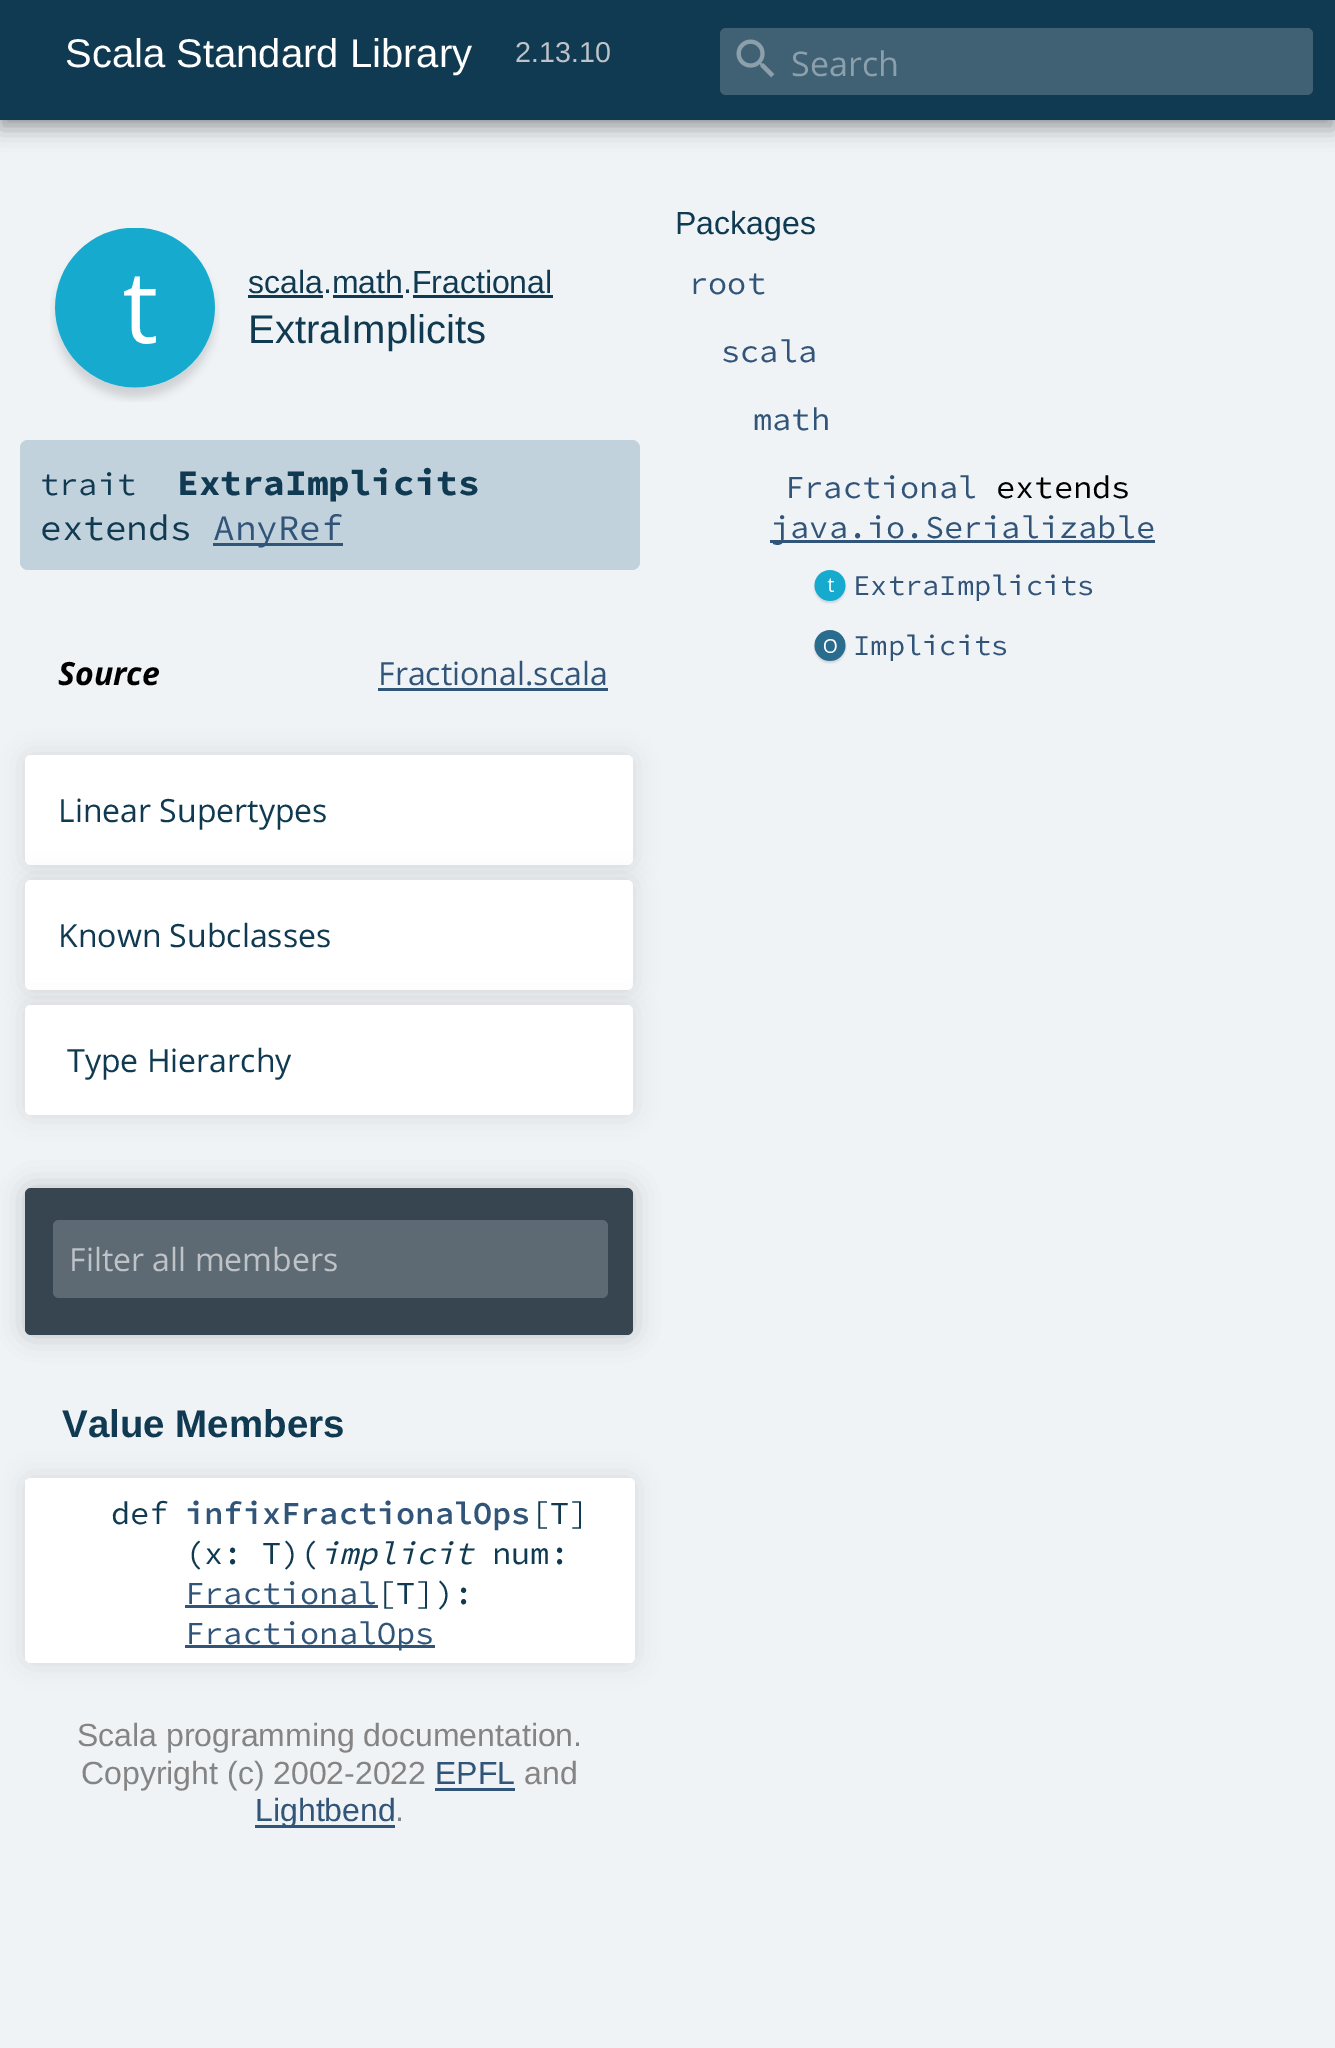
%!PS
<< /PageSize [1335 2048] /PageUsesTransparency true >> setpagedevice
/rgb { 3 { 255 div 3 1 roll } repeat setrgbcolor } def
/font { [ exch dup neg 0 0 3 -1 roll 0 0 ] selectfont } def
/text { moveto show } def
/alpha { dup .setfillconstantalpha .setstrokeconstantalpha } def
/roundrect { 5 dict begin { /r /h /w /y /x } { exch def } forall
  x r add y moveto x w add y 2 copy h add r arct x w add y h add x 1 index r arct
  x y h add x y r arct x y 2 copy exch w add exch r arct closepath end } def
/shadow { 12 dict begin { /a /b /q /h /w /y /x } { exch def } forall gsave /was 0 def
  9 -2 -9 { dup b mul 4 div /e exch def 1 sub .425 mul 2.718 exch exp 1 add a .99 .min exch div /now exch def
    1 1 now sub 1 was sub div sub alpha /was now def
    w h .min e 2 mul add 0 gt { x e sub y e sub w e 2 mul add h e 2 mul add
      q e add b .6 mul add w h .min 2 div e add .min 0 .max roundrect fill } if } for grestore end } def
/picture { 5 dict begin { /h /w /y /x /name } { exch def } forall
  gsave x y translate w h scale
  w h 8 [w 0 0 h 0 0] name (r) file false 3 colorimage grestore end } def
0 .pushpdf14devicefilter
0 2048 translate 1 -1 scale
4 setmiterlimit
240 243 246 rgb
0 0 1335 2048 rectfill
0 0 0 rgb
0 10 1335 120 0 10 0.28 shadow
0 0 1335 120 0 5 0.18 shadow
16 58 81 rgb
0 0 1335 120 rectfill
64 97 116 rgb
720 28 593 67 6 roundrect fill
(img_01.rgb) 736 39 39 39 picture
(img_02.rgb) 50 228 170 174 picture
16 58 81 rgb
248 295 75 3 rectfill
333 295 70 3 rectfill
413 295 140 3 rectfill
194 210 220 rgb
20 440 620 130 8 roundrect fill
49 84 121 rgb
213 543 130 3 rectfill
378 688 230 3 rectfill
0 0 0 rgb
25 755 608 110 6 12.5 0.1 shadow
255 255 255 rgb
25 755 608 110 6 roundrect fill
0 0 0 rgb
25 880 608 110 6 12.5 0.1 shadow
255 255 255 rgb
25 880 608 110 6 roundrect fill
0 0 0 rgb
25 1005 608 110 6 12.5 0.1 shadow
255 255 255 rgb
25 1005 608 110 6 roundrect fill
0 0 0 rgb
25 1188 608 147 6 12.5 0.2 shadow
54 69 80 rgb
25 1188 608 147 6 roundrect fill
94 106 115 rgb
53 1220 555 78 6 roundrect fill
0 0 0 rgb
25 1478 610 185 6 12.5 0.1 shadow
255 255 255 rgb
25 1478 610 185 6 roundrect fill
25 1480 2 180 rectfill
49 84 121 rgb
185 1605 193 3 rectfill
185 1645 250 3 rectfill
435 1788 80 3 rectfill
255 1825 140 3 rectfill
770 540 385 3 rectfill
(img_03.rgb) 813 570 34 34 picture
(img_04.rgb) 813 630 34 34 picture
/LiberationSans-Regular 40 font
255 255 255 rgb
(Scala Standard Library) 65 67 text
/LiberationSans-Regular 28.75 font
191 195 199 rgb
(2.13.10) 515 62 text
/OpenSans-Regular 34 font
140 160 172 rgb
(Search) 791 76 text
/LiberationSans-Regular 32 font
16 58 81 rgb
(scala.math.Fractional) 248 293 text
/LiberationSans-Regular 40 font
(ExtraImplicits) 248 343 text
/SourceCodePro-Bold 36 font
(ExtraImplicits) 177 495 text
/SourceCodePro-Regular 36 font
(extends) 40 540 text
49 84 121 rgb
(AnyRef) 213 540 text
/SourceCodePro-Regular 32 font
16 58 81 rgb
(trait) 40 495 text
/OpenSans-BoldItalic 32 font
0 0 0 rgb
(Source) 58 685 text
/OpenSans-Regular 32 font
49 84 121 rgb
(Fractional.scala) 378 685 text
16 58 81 rgb
(Linear Supertypes) 58 822 text
(Known Subclasses) 58 947 text
(Type Hierarchy) 67 1072 text
191 195 199 rgb
(Filter all members) 69 1271 text
/LiberationSans-Bold 38.5 font
16 58 81 rgb
(Value Members) 62 1437 text
/SourceCodePro-Regular 32 font
(def) 111 1524 text
/SourceCodePro-SemiBold 32 font
49 84 121 rgb
(infixFractionalOps) 185 1524 text
/SourceCodePro-Regular 32 font
16 58 81 rgb
([T]) 531 1524 text
(\(x: T\)\() 185 1564 text
/SourceCodePro-Italic 32 font
(implicit) 320 1564 text
/SourceCodePro-Regular 32 font
(num:) 492 1564 text
49 84 121 rgb
(Fractional) 185 1604 text
16 58 81 rgb
([T]\):) 377 1604 text
49 84 121 rgb
(FractionalOps) 185 1644 text
/LiberationSans-Regular 32 font
133 132 132 rgb
(Scala programming documentation.) 77 1746 text
(Copyright \(c\) 2002-2022) 81 1784 text
49 84 121 rgb
(EPFL) 435 1784 text
133 132 132 rgb
(and) 524 1784 text
49 84 121 rgb
(Lightbend) 255 1821 text
133 132 132 rgb
(.) 395 1821 text
16 58 81 rgb
(Packages) 675 234 text
/SourceCodePro-Regular 32 font
49 84 121 rgb
(root) 689 294 text
(scala) 721 362 text
(math) 753 430 text
(Fractional) 785 498 text
0 0 0 rgb
(extends) 996 498 text
49 84 121 rgb
(java.io.Serializable) 771 538 text
/SourceCodePro-Regular 28.75 font
(ExtraImplicits) 853 595 text
(Implicits) 853 655 text
.poppdf14devicefilter showpage
